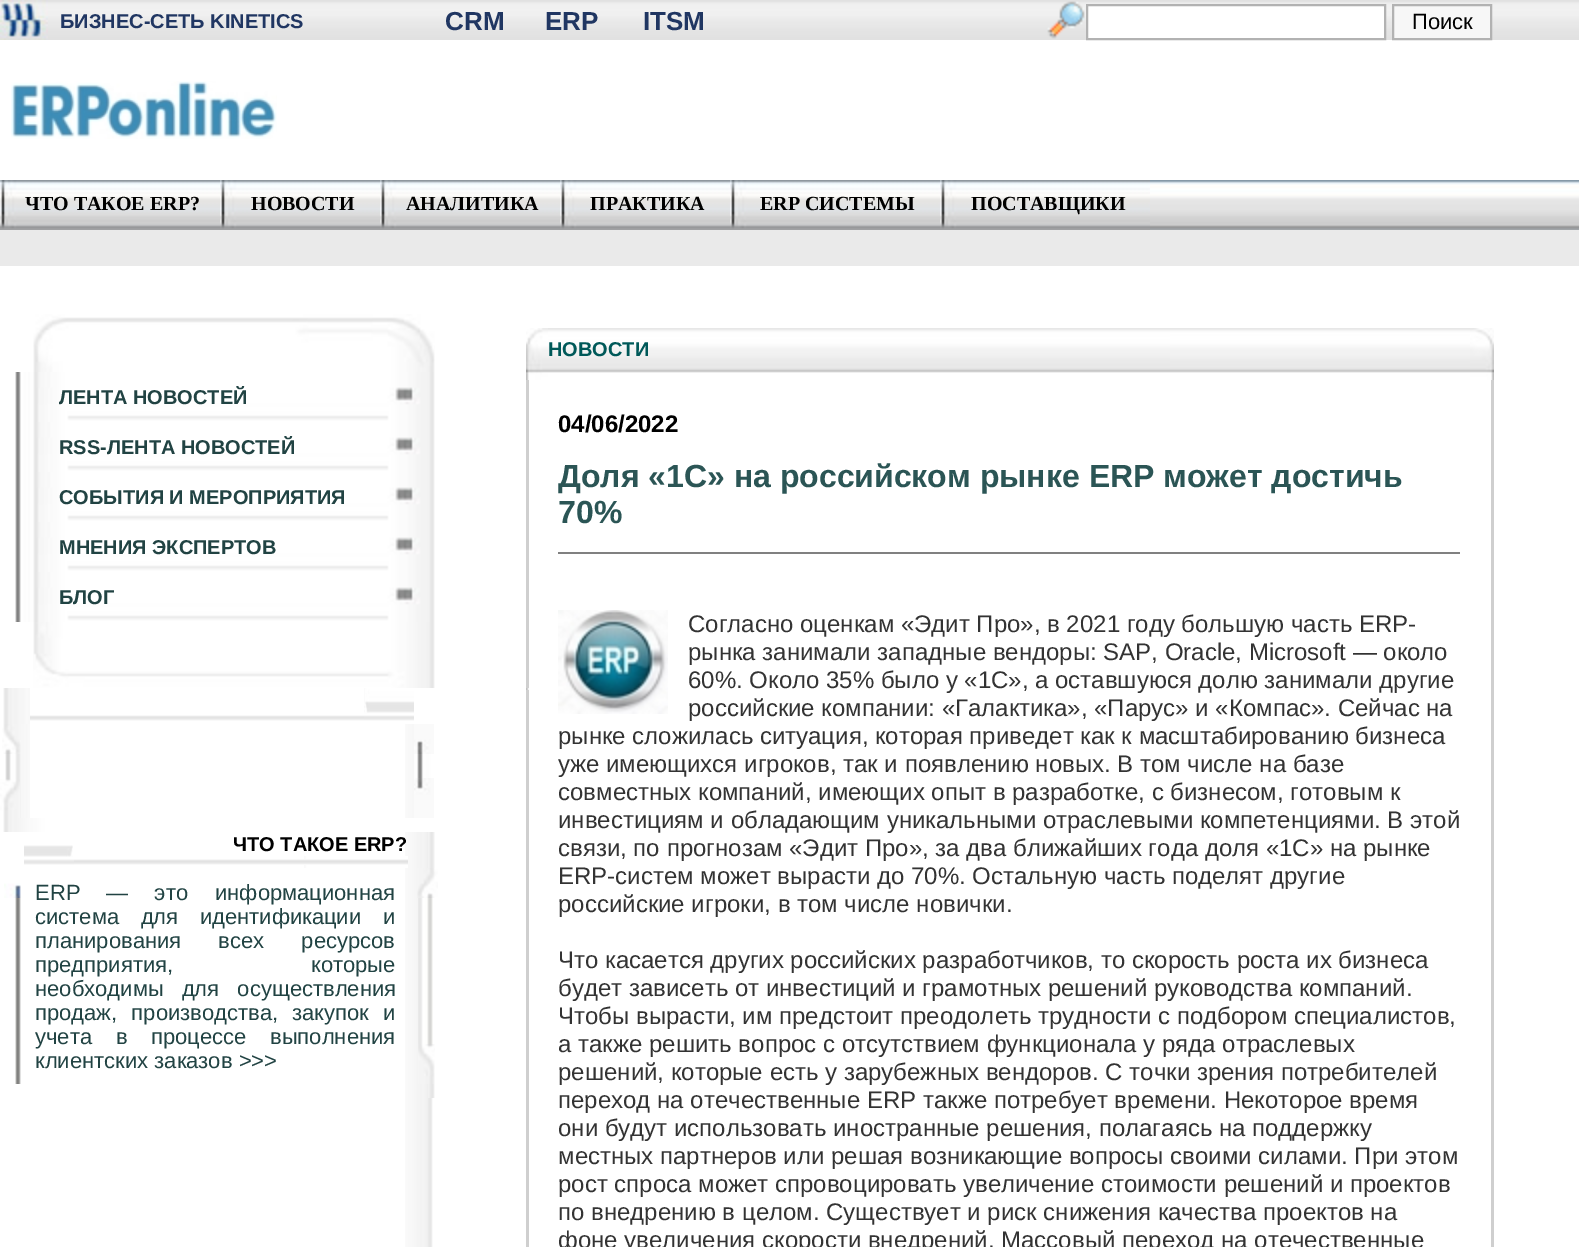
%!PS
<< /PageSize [1579 1247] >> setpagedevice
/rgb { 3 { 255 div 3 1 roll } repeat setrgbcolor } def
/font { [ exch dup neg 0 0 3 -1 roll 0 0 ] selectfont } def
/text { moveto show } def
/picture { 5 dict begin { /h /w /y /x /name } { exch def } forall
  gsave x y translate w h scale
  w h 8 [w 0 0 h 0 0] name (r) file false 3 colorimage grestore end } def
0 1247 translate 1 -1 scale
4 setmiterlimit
255 255 255 rgb
0 0 1579 1247 rectfill
(img_01.rgb) 48 0 1531 40 picture
(img_02.rgb) 0 0 48 40 picture
(img_03.rgb) 1047 1 38 38 picture
1087 5 moveto 298 0 rlineto 0 34 rlineto -298 0 rlineto closepath gsave fill grestore
178 178 178 rgb
2 setlinewidth
stroke
247 247 247 rgb
1393 5 moveto 98 0 rlineto 0 34 rlineto -98 0 rlineto closepath gsave fill grestore
178 178 178 rgb
stroke
(img_04.rgb) 11 81 266 58 picture
(img_05.rgb) 0 180 220 50 picture
(img_06.rgb) 220 180 160 50 picture
(img_07.rgb) 380 180 180 50 picture
(img_08.rgb) 560 180 170 50 picture
(img_09.rgb) 730 180 210 50 picture
(img_09.rgb) 940 180 210 50 picture
(img_10.rgb) 1150 180 429 50 picture
234 234 234 rgb
0 230 1579 36 rectfill
(img_11.rgb) 405 724 28 523 picture
(img_12.rgb) 33 314 402 58 picture
(img_13.rgb) 15 372 420 50 picture
(img_13.rgb) 15 422 420 50 picture
(img_13.rgb) 15 472 420 50 picture
(img_13.rgb) 15 522 420 50 picture
(img_13.rgb) 15 572 420 50 picture
(img_14.rgb) 33 622 402 66 picture
(img_15.rgb) 3 688 27 36 picture
(img_16.rgb) 364 688 50 36 picture
(img_17.rgb) 365 688 49 25 picture
(img_18.rgb) 30 715 334 6 picture
(img_19.rgb) 21 724 9 30 picture
(img_20.rgb) 2 724 19 30 picture
(img_21.rgb) 414 724 20 30 picture
(img_22.rgb) 5 754 25 24 picture
(img_23.rgb) 414 754 19 24 picture
(img_24.rgb) 5 778 25 40 picture
(img_25.rgb) 0 779 20 39 picture
(img_26.rgb) 414 778 20 40 picture
(img_27.rgb) 3 818 430 14 picture
(img_28.rgb) 24 859 50 6 picture
(img_29.rgb) 24 845 49 12 picture
(img_30.rgb) 428 832 7 36 picture
(img_31.rgb) 304 856 104 12 picture
(img_32.rgb) 74 859 334 6 picture
(img_33.rgb) 4 868 17 30 picture
(img_34.rgb) 417 868 21 30 picture
(img_35.rgb) 15 898 6 146 picture
(img_36.rgb) 418 898 15 146 picture
(img_37.rgb) 15 1044 6 40 picture
(img_38.rgb) 418 1044 17 40 picture
(img_39.rgb) 428 1084 7 14 picture
(img_40.rgb) 526 328 22 52 picture
(img_41.rgb) 548 328 622 45 picture
(img_42.rgb) 1170 328 300 45 picture
(img_43.rgb) 1470 328 24 52 picture
207 207 207 rgb
526 380 3 867 rectfill
(img_44.rgb) 526 688 3 2 picture
128 128 128 rgb
558 552 902 2 rectfill
(img_45.rgb) 558 610 110 104 picture
207 207 207 rgb
1491 380 3 867 rectfill
/LiberationSans-Bold 20 font
32 54 98 rgb
(БИЗНЕС-СЕТЬ KINETICS) 60 28 text
/LiberationSans-Bold 26 font
(CRM) 445 30 text
(ERP) 545 30 text
(ITSM) 643 30 text
/LiberationSans-Regular 22 font
0 0 0 rgb
(Поиск) 1412 29 text
/LiberationSerif-Bold 20 font
(ЧТО ТАКОЕ ERP?) 25 210 text
(НОВОСТИ) 251 210 text
(АНАЛИТИКА) 406 210 text
(ПРАКТИКА) 590 210 text
(ERP СИСТЕМЫ) 760 210 text
(ПОСТАВЩИКИ) 971 210 text
/LiberationSans-Bold 20 font
33 67 67 rgb
(ЛЕНТА НОВОСТЕЙ) 59 404 text
(RSS-ЛЕНТА НОВОСТЕЙ) 59 454 text
(СОБЫТИЯ И МЕРОПРИЯТИЯ) 59 504 text
(МНЕНИЯ ЭКСПЕРТОВ) 59 554 text
(БЛОГ) 59 604 text
0 0 0 rgb
(ЧТО ТАКОЕ ERP?) 233 851 text
/LiberationSans-Regular 22 font
33 67 67 rgb
35 900 moveto 20 0 32 (ERP — это) widthshow
(информационная) 215 900 text
35 924 moveto 15.5 0 32 (система для идентификации и) widthshow
35 948 moveto 31 0 32 (планирования всех ресурсов) widthshow
35 972 moveto 132 0 32 (предприятия, которые) widthshow
35 996 moveto 12 0 32 (необходимы для осуществления) widthshow
35 1020 moveto 8 0 32 (продаж, производства, закупок и) widthshow
35 1044 moveto 17.5 0 32 (учета в процессе выполнения) widthshow
(клиентских заказов >>>) 35 1068 text
/LiberationSans-Bold 20 font
0 89 89 rgb
(НОВОСТИ) 548 356 text
/LiberationSans-Bold 24 font
0 0 0 rgb
(04/06/2022) 558 432 text
/LiberationSans-Bold 32 font
43 85 85 rgb
(Доля «1С» на российском рынке ERP может достичь) 558 487 text
(70%) 558 523 text
/LiberationSans-Regular 24 font
51 51 51 rgb
(Согласно оценкам «Эдит Про», в 2021 году большую часть ERP-) 688 632 text
(рынка занимали западные вендоры: SAP, Oracle, Microsoft — около) 688 660 text
(60%. Около 35% было у «1С», а оставшуюся долю занимали другие) 688 688 text
(российские компании: «Галактика», «Парус» и «Компас». Сейчас на) 688 716 text
(рынке сложилась ситуация, которая приведет как к масштабированию бизнеса) 558 744 text
(уже имеющихся игроков, так и появлению новых. В том числе на базе) 558 772 text
(совместных компаний, имеющих опыт в разработке, с бизнесом, готовым к) 558 800 text
(инвестициям и обладающим уникальными отраслевыми компетенциями. В этой) 558 828 text
(связи, по прогнозам «Эдит Про», за два ближайших года доля «1С» на рынке) 558 856 text
(ERP-систем может вырасти до 70%. Остальную часть поделят другие) 558 884 text
(российские игроки, в том числе новички.) 558 912 text
(Что касается других российских разработчиков, то скорость роста их бизнеса) 558 968 text
(будет зависеть от инвестиций и грамотных решений руководства компаний.) 558 996 text
(Чтобы вырасти, им предстоит преодолеть трудности с подбором специалистов,) 558 1024 text
(а также решить вопрос с отсутствием функционала у ряда отраслевых) 558 1052 text
(решений, которые есть у зарубежных вендоров. С точки зрения потребителей) 558 1080 text
(переход на отечественные ERP также потребует времени. Некоторое время) 558 1108 text
(они будут использовать иностранные решения, полагаясь на поддержку) 558 1136 text
(местных партнеров или решая возникающие вопросы своими силами. При этом) 558 1164 text
(рост спроса может спровоцировать увеличение стоимости решений и проектов) 558 1192 text
(по внедрению в целом. Существует и риск снижения качества проектов на) 558 1220 text
(фоне увеличения скорости внедрений. Массовый переход на отечественные) 558 1248 text
showpage
